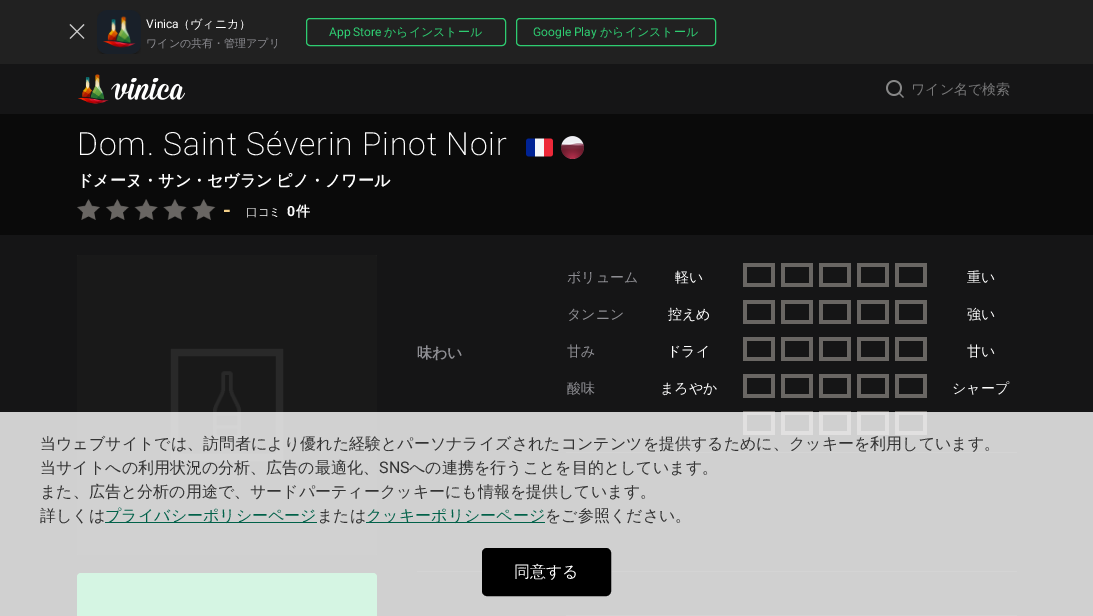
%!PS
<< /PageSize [1093 616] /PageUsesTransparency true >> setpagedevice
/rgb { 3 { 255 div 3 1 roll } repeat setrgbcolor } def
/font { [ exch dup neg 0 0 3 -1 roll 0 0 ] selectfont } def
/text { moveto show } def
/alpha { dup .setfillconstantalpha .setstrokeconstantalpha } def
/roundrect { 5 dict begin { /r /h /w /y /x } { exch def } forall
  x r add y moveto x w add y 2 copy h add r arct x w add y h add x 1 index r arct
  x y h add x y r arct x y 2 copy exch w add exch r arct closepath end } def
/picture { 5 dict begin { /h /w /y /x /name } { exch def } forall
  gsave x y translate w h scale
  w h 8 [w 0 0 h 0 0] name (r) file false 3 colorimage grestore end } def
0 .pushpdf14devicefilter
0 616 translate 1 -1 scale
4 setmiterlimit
33 33 33 rgb
0 0 1093 616 rectfill
(img_01.rgb) 69 24 16 15 picture
(img_02.rgb) 97 10 44 44 picture
46 204 113 rgb
306.5 18.5 199 27 3.5 roundrect stroke
516.5 18.5 199 27 3.5 roundrect stroke
21 21 22 rgb
0 64 1093 50 rectfill
(img_03.rgb) 77 74 32 30 picture
(img_04.rgb) 111 78 74 22 picture
(img_05.rgb) 886 80 18 18 picture
0 235 1093 381 rectfill
10 10 10 rgb
0 114 1093 121 rectfill
(img_06.rgb) 526 138 27 19 picture
(img_07.rgb) 561 136 23 23 picture
(img_08.rgb) 77 199 139 21 picture
32 32 32 rgb
77 255 300 300 rectfill
(img_09.rgb) 77 255 300 300 picture
46 204 113 rgb
77 573 300 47 4 roundrect fill
(img_10.rgb) 743 263 184 24 picture
(img_10.rgb) 743 300 184 24 picture
(img_10.rgb) 743 337 184 24 picture
(img_10.rgb) 743 374 184 24 picture
(img_10.rgb) 743 411 184 24 picture
38 38 38 rgb
566 452 451 1 rectfill
417 571 600 1 rectfill
566 615 451 1 rectfill
0.8 alpha
255 255 255 rgb
0 412 1093 204 rectfill
1 alpha
1 97 73 rgb
105 522 212 1 rectfill
366 522 179 1 rectfill
0 0 0 rgb
483 549 127 46 4 roundrect gsave fill grestore
2 setlinewidth
stroke
/Roboto-Regular 12 font
255 255 255 rgb
(Vinica) 146 28 text
/WenQuanYiZenHei-Medium 12 font
(（ヴィニカ）) 178 28 text
/WenQuanYiZenHei-Medium 11 font
142 142 147 rgb
(ワインの共有・管理アプリ) 146 47 text
/Roboto-Regular 12 font
46 204 113 rgb
(App Store) 329 36 text
/WenQuanYiZenHei-Medium 12 font
(からインストール) 384 36 text
/Roboto-Regular 12 font
(Google Play) 533 36 text
/WenQuanYiZenHei-Medium 12 font
(からインストール) 600 36 text
/WenQuanYiZenHei-Medium 14 font
119 119 120 rgb
(ワイン名で検索) 911 94 text
/Roboto-ExtraLight 32 font
255 255 255 rgb
77 155 moveto 0.8 0 (Dom. Saint Séverin Pinot Noir) ashow
/WenQuanYiZenHei-Bold 16 font
77 186 moveto -1 0 32 (ドメーヌ・サン・セヴラン ピノ・ノワール) widthshow
/Roboto-Bold 20 font
244 208 137 rgb
(-) 223 217 text
/WenQuanYiZenHei-Medium 11.5 font
255 255 255 rgb
(口コミ) 246 216 text
/Roboto-Bold 14 font
(0) 287 216 text
/WenQuanYiZenHei-Bold 14 font
(件) 296 216 text
/WenQuanYiZenHei-Bold 15 font
142 142 147 rgb
(味わい) 417 358 text
/WenQuanYiZenHei-Medium 14 font
(ボリューム) 567 282 text
255 255 255 rgb
(軽い) 675 282 text
(重い) 967 282 text
142 142 147 rgb
(タンニン) 567 319 text
255 255 255 rgb
(控えめ) 668 319 text
(強い) 967 319 text
142 142 147 rgb
(甘み) 567 356 text
255 255 255 rgb
(ドライ) 667 356 text
(甘い) 967 356 text
142 142 147 rgb
(酸味) 567 393 text
255 255 255 rgb
(まろやか) 660 393 text
(シャープ) 952 393 text
/WenQuanYiZenHei-Medium 16 font
51 51 51 rgb
(当ウェブサイトでは、訪問者により優れた経験とパーソナライズされたコンテンツを提供するために、クッキーを利用しています。) 40 449 text
(当サイトへの利用状況の分析、広告の最適化、) 40 473 text
/Roboto-Regular 16 font
(SNS) 379 473 text
/WenQuanYiZenHei-Medium 16 font
(への連携を行うことを目的としています。) 409 473 text
(また、広告と分析の用途で、サードパーティークッキーにも情報を提供しています。) 40 497 text
(詳しくは) 40 521 text
1 97 73 rgb
(プライバシーポリシーページ) 105 521 text
51 51 51 rgb
(または) 317 521 text
1 97 73 rgb
(クッキーポリシーページ) 366 521 text
51 51 51 rgb
(をご参照ください。) 545 521 text
255 255 255 rgb
(同意する) 514 577 text
.poppdf14devicefilter showpage
